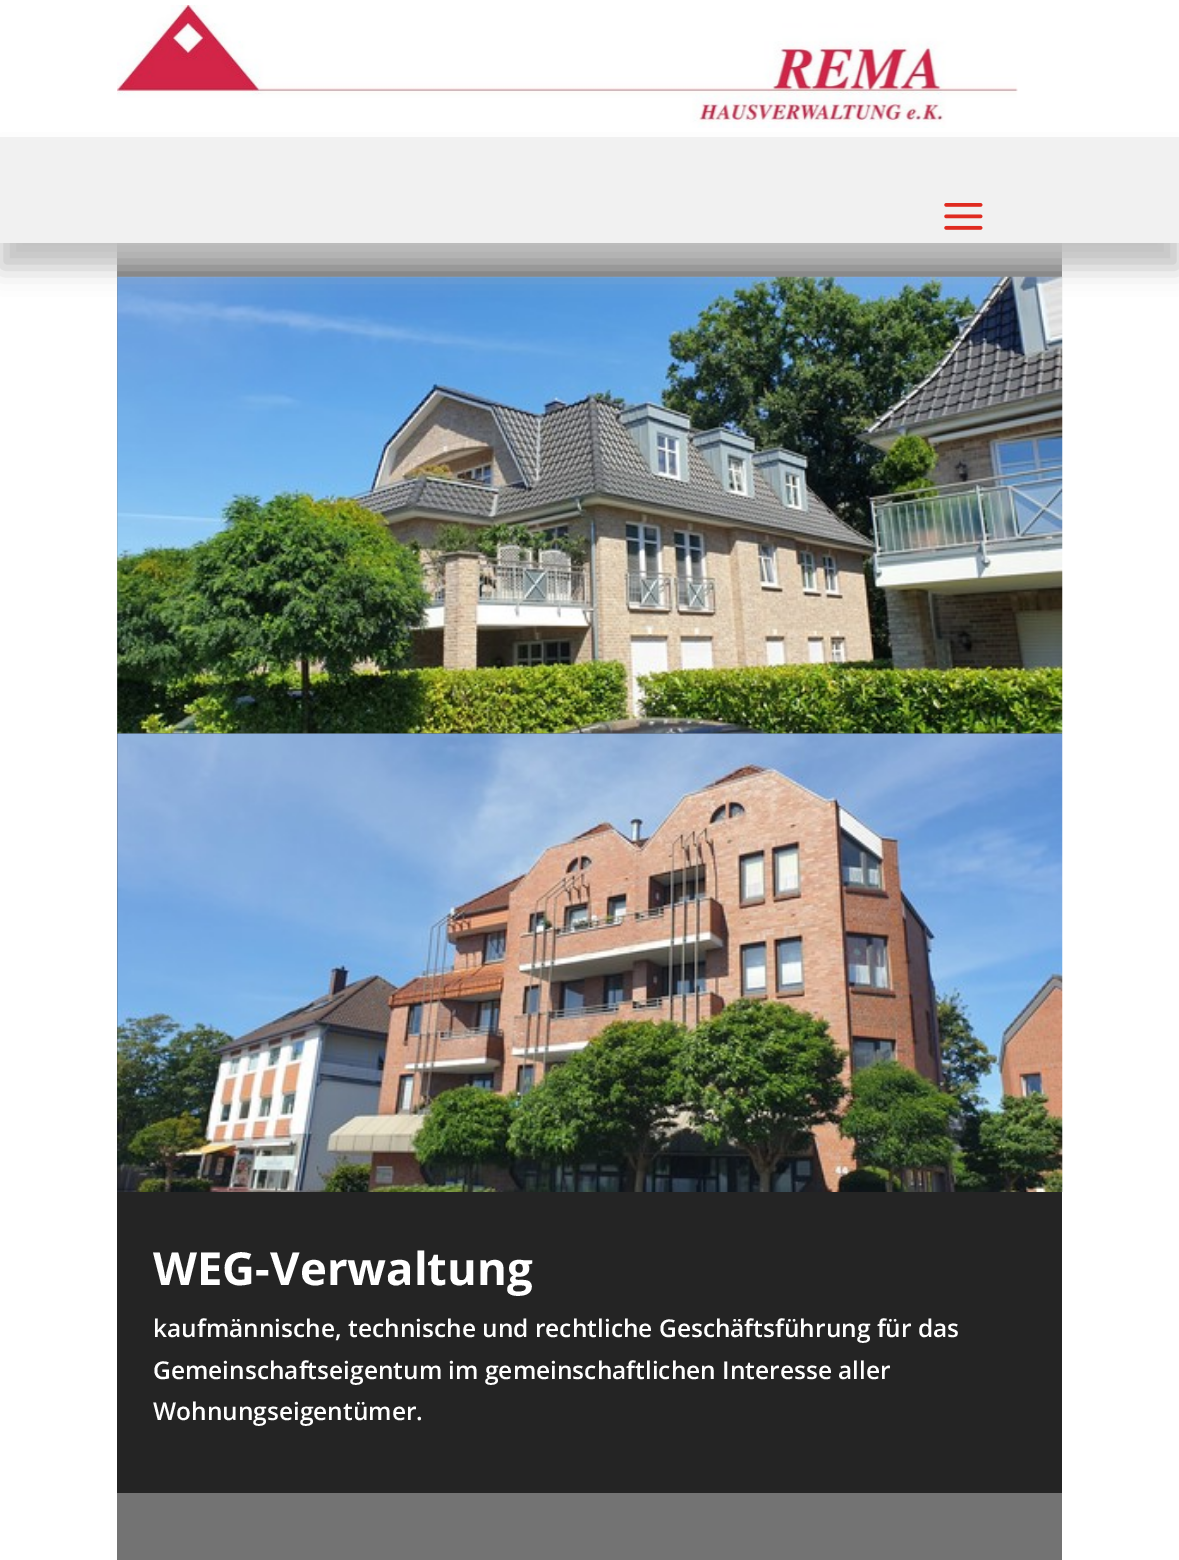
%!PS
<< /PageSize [1179 1560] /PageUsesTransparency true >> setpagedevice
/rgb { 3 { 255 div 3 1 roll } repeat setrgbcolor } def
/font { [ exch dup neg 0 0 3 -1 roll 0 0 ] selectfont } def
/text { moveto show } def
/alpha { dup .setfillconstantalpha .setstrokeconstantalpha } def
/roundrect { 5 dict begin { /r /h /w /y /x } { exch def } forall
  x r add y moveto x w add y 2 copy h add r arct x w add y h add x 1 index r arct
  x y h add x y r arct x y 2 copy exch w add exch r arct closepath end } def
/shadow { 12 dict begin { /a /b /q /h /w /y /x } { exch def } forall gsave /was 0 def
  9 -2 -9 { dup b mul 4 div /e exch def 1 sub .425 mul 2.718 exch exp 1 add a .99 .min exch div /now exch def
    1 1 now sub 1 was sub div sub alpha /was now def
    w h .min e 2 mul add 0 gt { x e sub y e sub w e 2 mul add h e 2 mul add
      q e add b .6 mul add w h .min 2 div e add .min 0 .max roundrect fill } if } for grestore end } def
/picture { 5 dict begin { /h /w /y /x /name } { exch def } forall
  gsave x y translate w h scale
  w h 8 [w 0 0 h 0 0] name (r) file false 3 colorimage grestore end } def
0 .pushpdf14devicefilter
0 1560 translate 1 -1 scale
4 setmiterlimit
255 255 255 rgb
0 0 1179 1560 rectfill
(img_01.rgb) 117 5 901 123 picture
115 115 115 rgb
117 243 945 490 rectfill
36 36 36 rgb
117 733 945 760 rectfill
(img_03.rgb) 117 276 946 458 picture
192 192 192 rgb
0 161 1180 107 0 13 1 shadow
241 241 241 rgb
0 137 1179 106 rectfill
(img_02.rgb) 944 203 39 27 picture
(img_04.rgb) 117 733 946 459 picture
115 115 115 rgb
117 1493 945 67 rectfill
/OpenSans-Bold 45.5 font
255 255 255 rgb
(WEG-Verwaltung) 153 1285 text
/OpenSans-SemiBold 24.5 font
(kaufmännische, technische und rechtliche Geschäftsführung für das) 153 1337 text
(Gemeinschaftseigentum im gemeinschaftlichen Interesse aller) 153 1379 text
(Wohnungseigentümer.) 153 1420 text
.poppdf14devicefilter showpage
